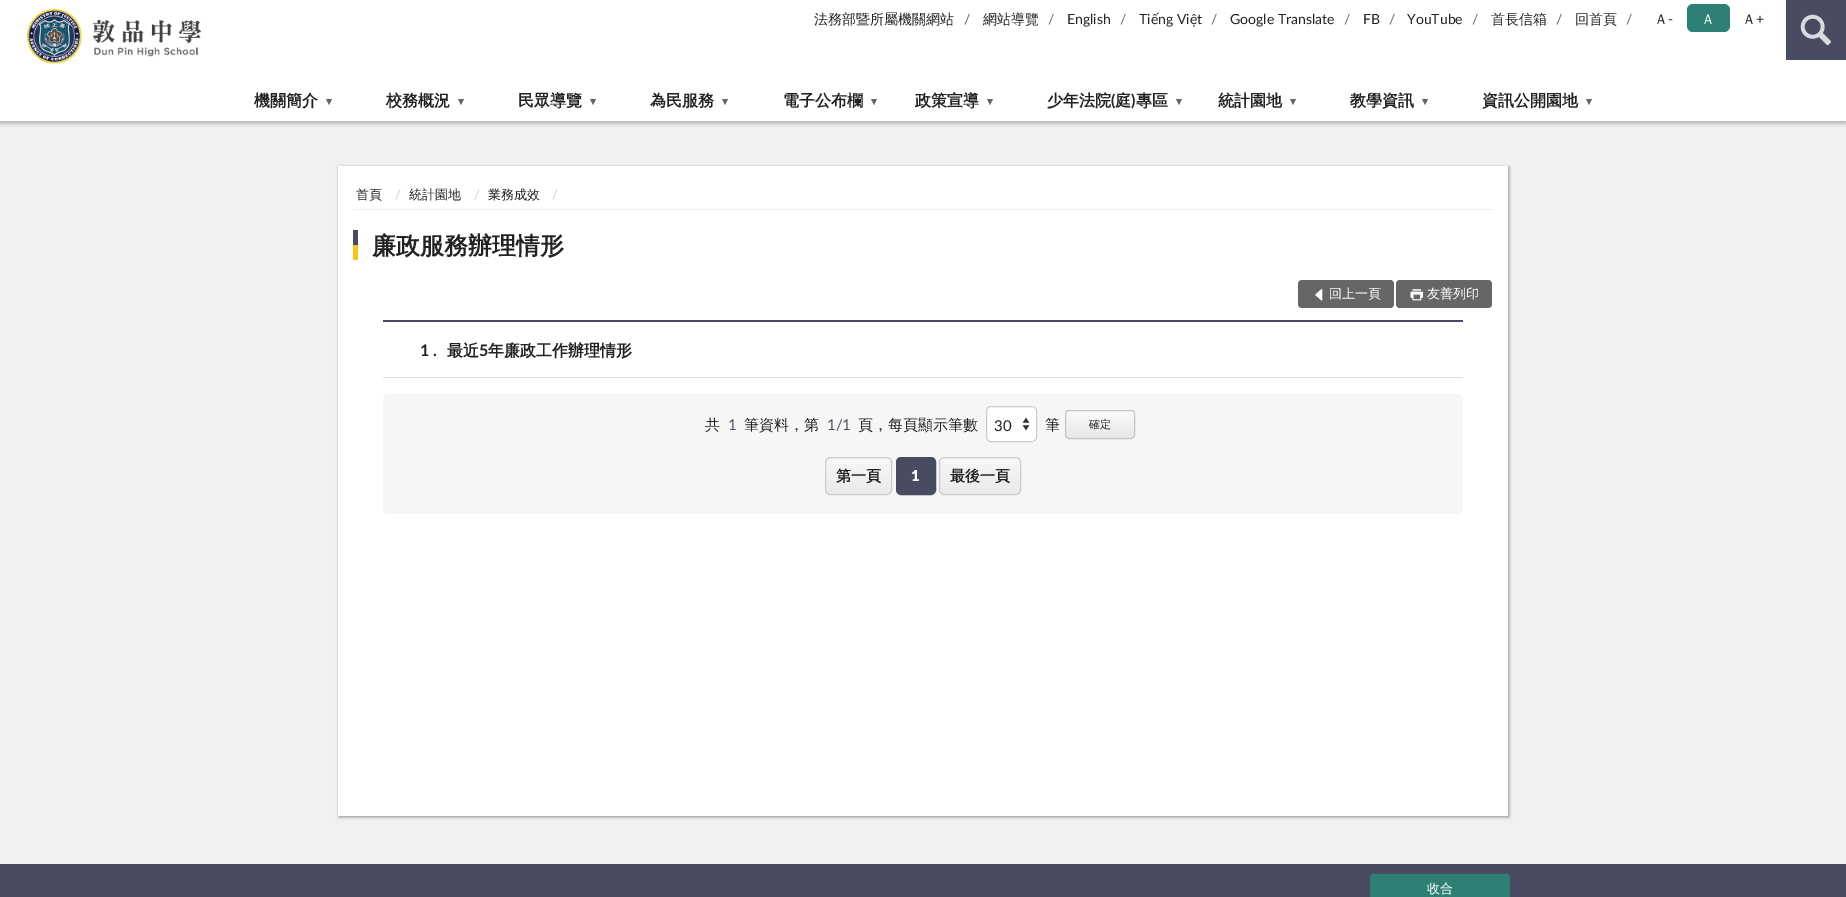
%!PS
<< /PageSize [1846 897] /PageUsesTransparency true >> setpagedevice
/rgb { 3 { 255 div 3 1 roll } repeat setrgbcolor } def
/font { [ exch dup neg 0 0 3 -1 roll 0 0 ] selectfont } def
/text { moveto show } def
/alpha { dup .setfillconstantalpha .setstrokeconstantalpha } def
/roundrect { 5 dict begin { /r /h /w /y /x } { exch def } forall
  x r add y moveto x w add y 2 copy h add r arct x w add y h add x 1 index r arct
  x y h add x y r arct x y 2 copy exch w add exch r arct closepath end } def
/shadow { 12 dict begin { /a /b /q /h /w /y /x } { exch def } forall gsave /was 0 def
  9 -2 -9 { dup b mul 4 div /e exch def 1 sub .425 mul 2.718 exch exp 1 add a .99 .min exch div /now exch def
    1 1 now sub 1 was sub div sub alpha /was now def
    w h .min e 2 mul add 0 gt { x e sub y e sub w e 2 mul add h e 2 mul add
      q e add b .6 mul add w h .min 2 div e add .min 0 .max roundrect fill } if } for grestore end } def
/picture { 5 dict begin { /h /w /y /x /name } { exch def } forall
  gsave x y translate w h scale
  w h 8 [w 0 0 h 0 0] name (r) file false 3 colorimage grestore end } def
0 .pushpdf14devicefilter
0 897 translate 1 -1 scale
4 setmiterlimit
255 255 255 rgb
0 0 1846 897 rectfill
241 241 241 rgb
0 121 1846 743 rectfill
gsave
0 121 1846 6 rectclip
0 0 0 rgb
0 2 1846 121 0 2.5 0.3 shadow
grestore
(img_01.rgb) 27 9 174 55 picture
45 128 115 rgb
1687 4 43 28 6 roundrect fill
73 76 97 rgb
1786 0 60 60 rectfill
(img_02.rgb) 1800 14 31 32 picture
102 102 102 rgb
326 99 moveto 6 0 rlineto -3 6 rlineto closepath fill
458 99 moveto 6 0 rlineto -3 6 rlineto closepath fill
590 99 moveto 6 0 rlineto -3 6 rlineto closepath fill
722 99 moveto 6 0 rlineto -3 6 rlineto closepath fill
871 99 moveto 6 0 rlineto -3 6 rlineto closepath fill
987 99 moveto 6 0 rlineto -3 6 rlineto closepath fill
1176 99 moveto 6 0 rlineto -3 6 rlineto closepath fill
1290 99 moveto 6 0 rlineto -3 6 rlineto closepath fill
1422 99 moveto 6 0 rlineto -3 6 rlineto closepath fill
1586 99 moveto 6 0 rlineto -3 6 rlineto closepath fill
0 0 0 rgb
339 167 1170 650 0 1.5 0.4 shadow
255 255 255 rgb
338 166 1170 650 rectfill
238 238 238 rgb
353 209 1140 1 rectfill
73 76 97 rgb
353 230 5 15 rectfill
252 194 17 rgb
353 245 5 15 rectfill
102 102 102 rgb
1298 280 96 28 4 roundrect fill
(img_03.rgb) 1315 289 8 12 picture
1396 280 96 28 4 roundrect fill
(img_04.rgb) 1410 289 14 12 picture
73 76 97 rgb
383 320 1080 2 rectfill
221 221 221 rgb
383 377 1080 1 rectfill
246 246 246 rgb
383 394 1080 120 6 roundrect fill
255 255 255 rgb
986 406 51 36 5 roundrect fill
(img_05.rgb) 1022 417 8 14 picture
204 204 204 rgb
986.5 406.5 50 35 4.5 roundrect stroke
gsave
1065 410 70 29 4 roundrect clip newpath
gsave 1065 411 moveto 70 0 rlineto 0 27 rlineto -70 0 rlineto closepath clip newpath
<< /ShadingType 2 /ColorSpace /DeviceRGB /Coords [1100 411 1100 438] /Extend [true true] /Function << /FunctionType 2 /Domain [0 1] /C0 [0.988 0.988 0.988] /C1 [0.902 0.902 0.902] /N 1 >> >> shfill grestore
grestore
196 196 196 rgb
1065.5 410.5 69 28 3.5 roundrect stroke
gsave
825 457 67 38 5 roundrect clip newpath
gsave 825 458 moveto 67 0 rlineto 0 36 rlineto -67 0 rlineto closepath clip newpath
<< /ShadingType 2 /ColorSpace /DeviceRGB /Coords [859 458 859 494] /Extend [true true] /Function << /FunctionType 2 /Domain [0 1] /C0 [0.969 0.969 0.969] /C1 [0.918 0.918 0.918] /N 1 >> >> shfill grestore
grestore
204 204 204 rgb
825.5 457.5 66 37 4.5 roundrect stroke
73 76 97 rgb
896.5 457.5 39 37 4.5 roundrect gsave fill grestore
stroke
gsave
939 457 82 38 5 roundrect clip newpath
gsave 939 458 moveto 82 0 rlineto 0 36 rlineto -82 0 rlineto closepath clip newpath
<< /ShadingType 2 /ColorSpace /DeviceRGB /Coords [980 458 980 494] /Extend [true true] /Function << /FunctionType 2 /Domain [0 1] /C0 [0.969 0.969 0.969] /C1 [0.918 0.918 0.918] /N 1 >> >> shfill grestore
grestore
204 204 204 rgb
939.5 457.5 81 37 4.5 roundrect stroke
73 76 97 rgb
0 864 1846 33 rectfill
45 128 115 rgb
1370 874 140 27 4 roundrect fill
/WenQuanYiZenHei-Medium 14 font
34 34 34 rgb
(法務部暨所屬機關網站) 814 24 text
/Lato-Regular 14 font
102 102 102 rgb
(/) 964 24 text
/WenQuanYiZenHei-Medium 14 font
34 34 34 rgb
(網站導覽) 983 24 text
/Lato-Regular 14 font
102 102 102 rgb
(/) 1048 24 text
34 34 34 rgb
(English) 1067 24 text
102 102 102 rgb
(/) 1120 24 text
34 34 34 rgb
(Tiếng Việt) 1139 24 text
102 102 102 rgb
(/) 1211 24 text
34 34 34 rgb
(Google Translate) 1230 24 text
102 102 102 rgb
(/) 1344 24 text
34 34 34 rgb
(FB) 1363 24 text
102 102 102 rgb
(/) 1389 24 text
34 34 34 rgb
(YouTube) 1407 24 text
102 102 102 rgb
(/) 1472 24 text
/WenQuanYiZenHei-Medium 14 font
34 34 34 rgb
(首長信箱) 1491 24 text
/Lato-Regular 14 font
102 102 102 rgb
(/) 1556 24 text
/WenQuanYiZenHei-Medium 14 font
34 34 34 rgb
(回首頁) 1575 24 text
/Lato-Regular 14 font
102 102 102 rgb
(/) 1626 24 text
/WenQuanYiZenHei-Medium 14 font
34 34 34 rgb
(Ａ) 1654 24 text
/Lato-Regular 14 font
(-) 1668 24 text
/WenQuanYiZenHei-Medium 14 font
255 255 255 rgb
(Ａ) 1701 24 text
34 34 34 rgb
(Ａ) 1742 24 text
/Lato-Regular 14 font
(+) 1756 24 text
/WenQuanYiZenHei-Bold 16 font
(機關簡介) 254 106 text
(校務概況) 386 106 text
(民眾導覽) 518 106 text
(為民服務) 650 106 text
(電子公布欄) 783 106 text
(政策宣導) 915 106 text
(少年法院) 1047 106 text
/Lato-Bold 16 font
(\() 1111 106 text
/WenQuanYiZenHei-Bold 16 font
(庭) 1115 106 text
/Lato-Bold 16 font
(\)) 1131 106 text
/WenQuanYiZenHei-Bold 16 font
(專區) 1136 106 text
(統計園地) 1218 106 text
(教學資訊) 1350 106 text
(資訊公開園地) 1482 106 text
/WenQuanYiZenHei-Medium 13 font
(首頁) 356 199 text
/Lato-Regular 13 font
204 204 204 rgb
(/) 395 199 text
/WenQuanYiZenHei-Medium 13 font
34 34 34 rgb
(統計園地) 409 199 text
/Lato-Regular 13 font
204 204 204 rgb
(/) 474 199 text
/WenQuanYiZenHei-Medium 13 font
34 34 34 rgb
(業務成效) 488 199 text
/Lato-Regular 13 font
204 204 204 rgb
(/) 552 199 text
/WenQuanYiZenHei-Bold 24 font
34 34 34 rgb
(廉政服務辦理情形) 372 254 text
/WenQuanYiZenHei-Medium 13 font
255 255 255 rgb
(回上一頁) 1329 298 text
(友善列印) 1427 298 text
/Lato-Bold 16 font
34 34 34 rgb
(1 .) 420 356 text
/WenQuanYiZenHei-Bold 16 font
(最近) 447 356 text
/Lato-Bold 16 font
(5) 479 356 text
/WenQuanYiZenHei-Bold 16 font
(年廉政工作辦理情形) 488 356 text
/WenQuanYiZenHei-Medium 15 font
(共) 705 430 text
/Lato-Regular 15 font
73 76 97 rgb
(1) 728 430 text
/WenQuanYiZenHei-Medium 15 font
34 34 34 rgb
(筆資料，第) 744 430 text
/Lato-Regular 15 font
73 76 97 rgb
(1/1) 827 430 text
/WenQuanYiZenHei-Medium 15 font
34 34 34 rgb
(頁，每頁顯示筆數) 858 430 text
/Lato-Regular 15 font
(30) 994 431 text
/WenQuanYiZenHei-Medium 15 font
(筆) 1045 430 text
/WenQuanYiZenHei-Medium 11 font
(確定) 1089 428 text
/WenQuanYiZenHei-Bold 15 font
(第一頁) 836 481 text
/Lato-ExtraBold 15 font
255 255 255 rgb
(1) 911 481 text
/WenQuanYiZenHei-Bold 15 font
34 34 34 rgb
(最後一頁) 950 481 text
/WenQuanYiZenHei-Medium 13 font
255 255 255 rgb
(收合) 1427 893 text
.poppdf14devicefilter showpage
